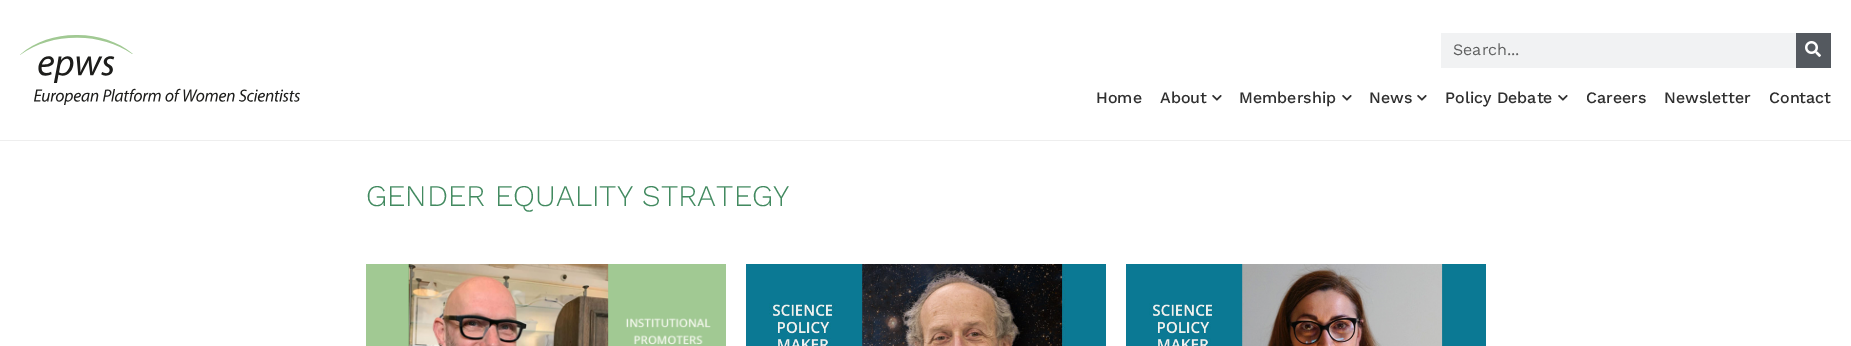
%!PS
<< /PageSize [1851 346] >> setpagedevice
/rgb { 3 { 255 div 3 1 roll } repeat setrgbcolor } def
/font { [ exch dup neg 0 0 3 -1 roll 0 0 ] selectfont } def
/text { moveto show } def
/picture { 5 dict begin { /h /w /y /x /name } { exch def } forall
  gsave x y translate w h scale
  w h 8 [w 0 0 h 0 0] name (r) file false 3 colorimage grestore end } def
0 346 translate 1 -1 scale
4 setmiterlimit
255 255 255 rgb
0 0 1851 346 rectfill
238 238 238 rgb
0 140 1851 1 rectfill
(img_01.rgb) 20 35 280 70 picture
241 242 243 rgb
1441 33 355 35 rectfill
84 89 95 rgb
1796 33 35 35 rectfill
(img_02.rgb) 1805 41 16 16 picture
(img_03.rgb) 1212 95 10 6 picture
(img_03.rgb) 1342 95 10 6 picture
(img_03.rgb) 1417 95 10 6 picture
(img_03.rgb) 1558 95 10 6 picture
(img_04.rgb) 366 264 360 82 picture
(img_05.rgb) 746 264 360 82 picture
(img_06.rgb) 1126 264 360 82 picture
/WorkSans-Regular 16 font
96 97 97 rgb
(Search...) 1453 55 text
/WorkSans-Medium 16 font
48 48 48 rgb
(Home) 1096 103 text
(About) 1160 103 text
(Membership) 1239 103 text
(News) 1369 103 text
(Policy Debate) 1445 103 text
(Careers) 1586 103 text
(Newsletter) 1664 103 text
(Contact) 1769 103 text
/WorkSans-Light 30 font
66 138 96 rgb
(GENDER EQUALITY STRATEGY) 366 206 text
showpage
